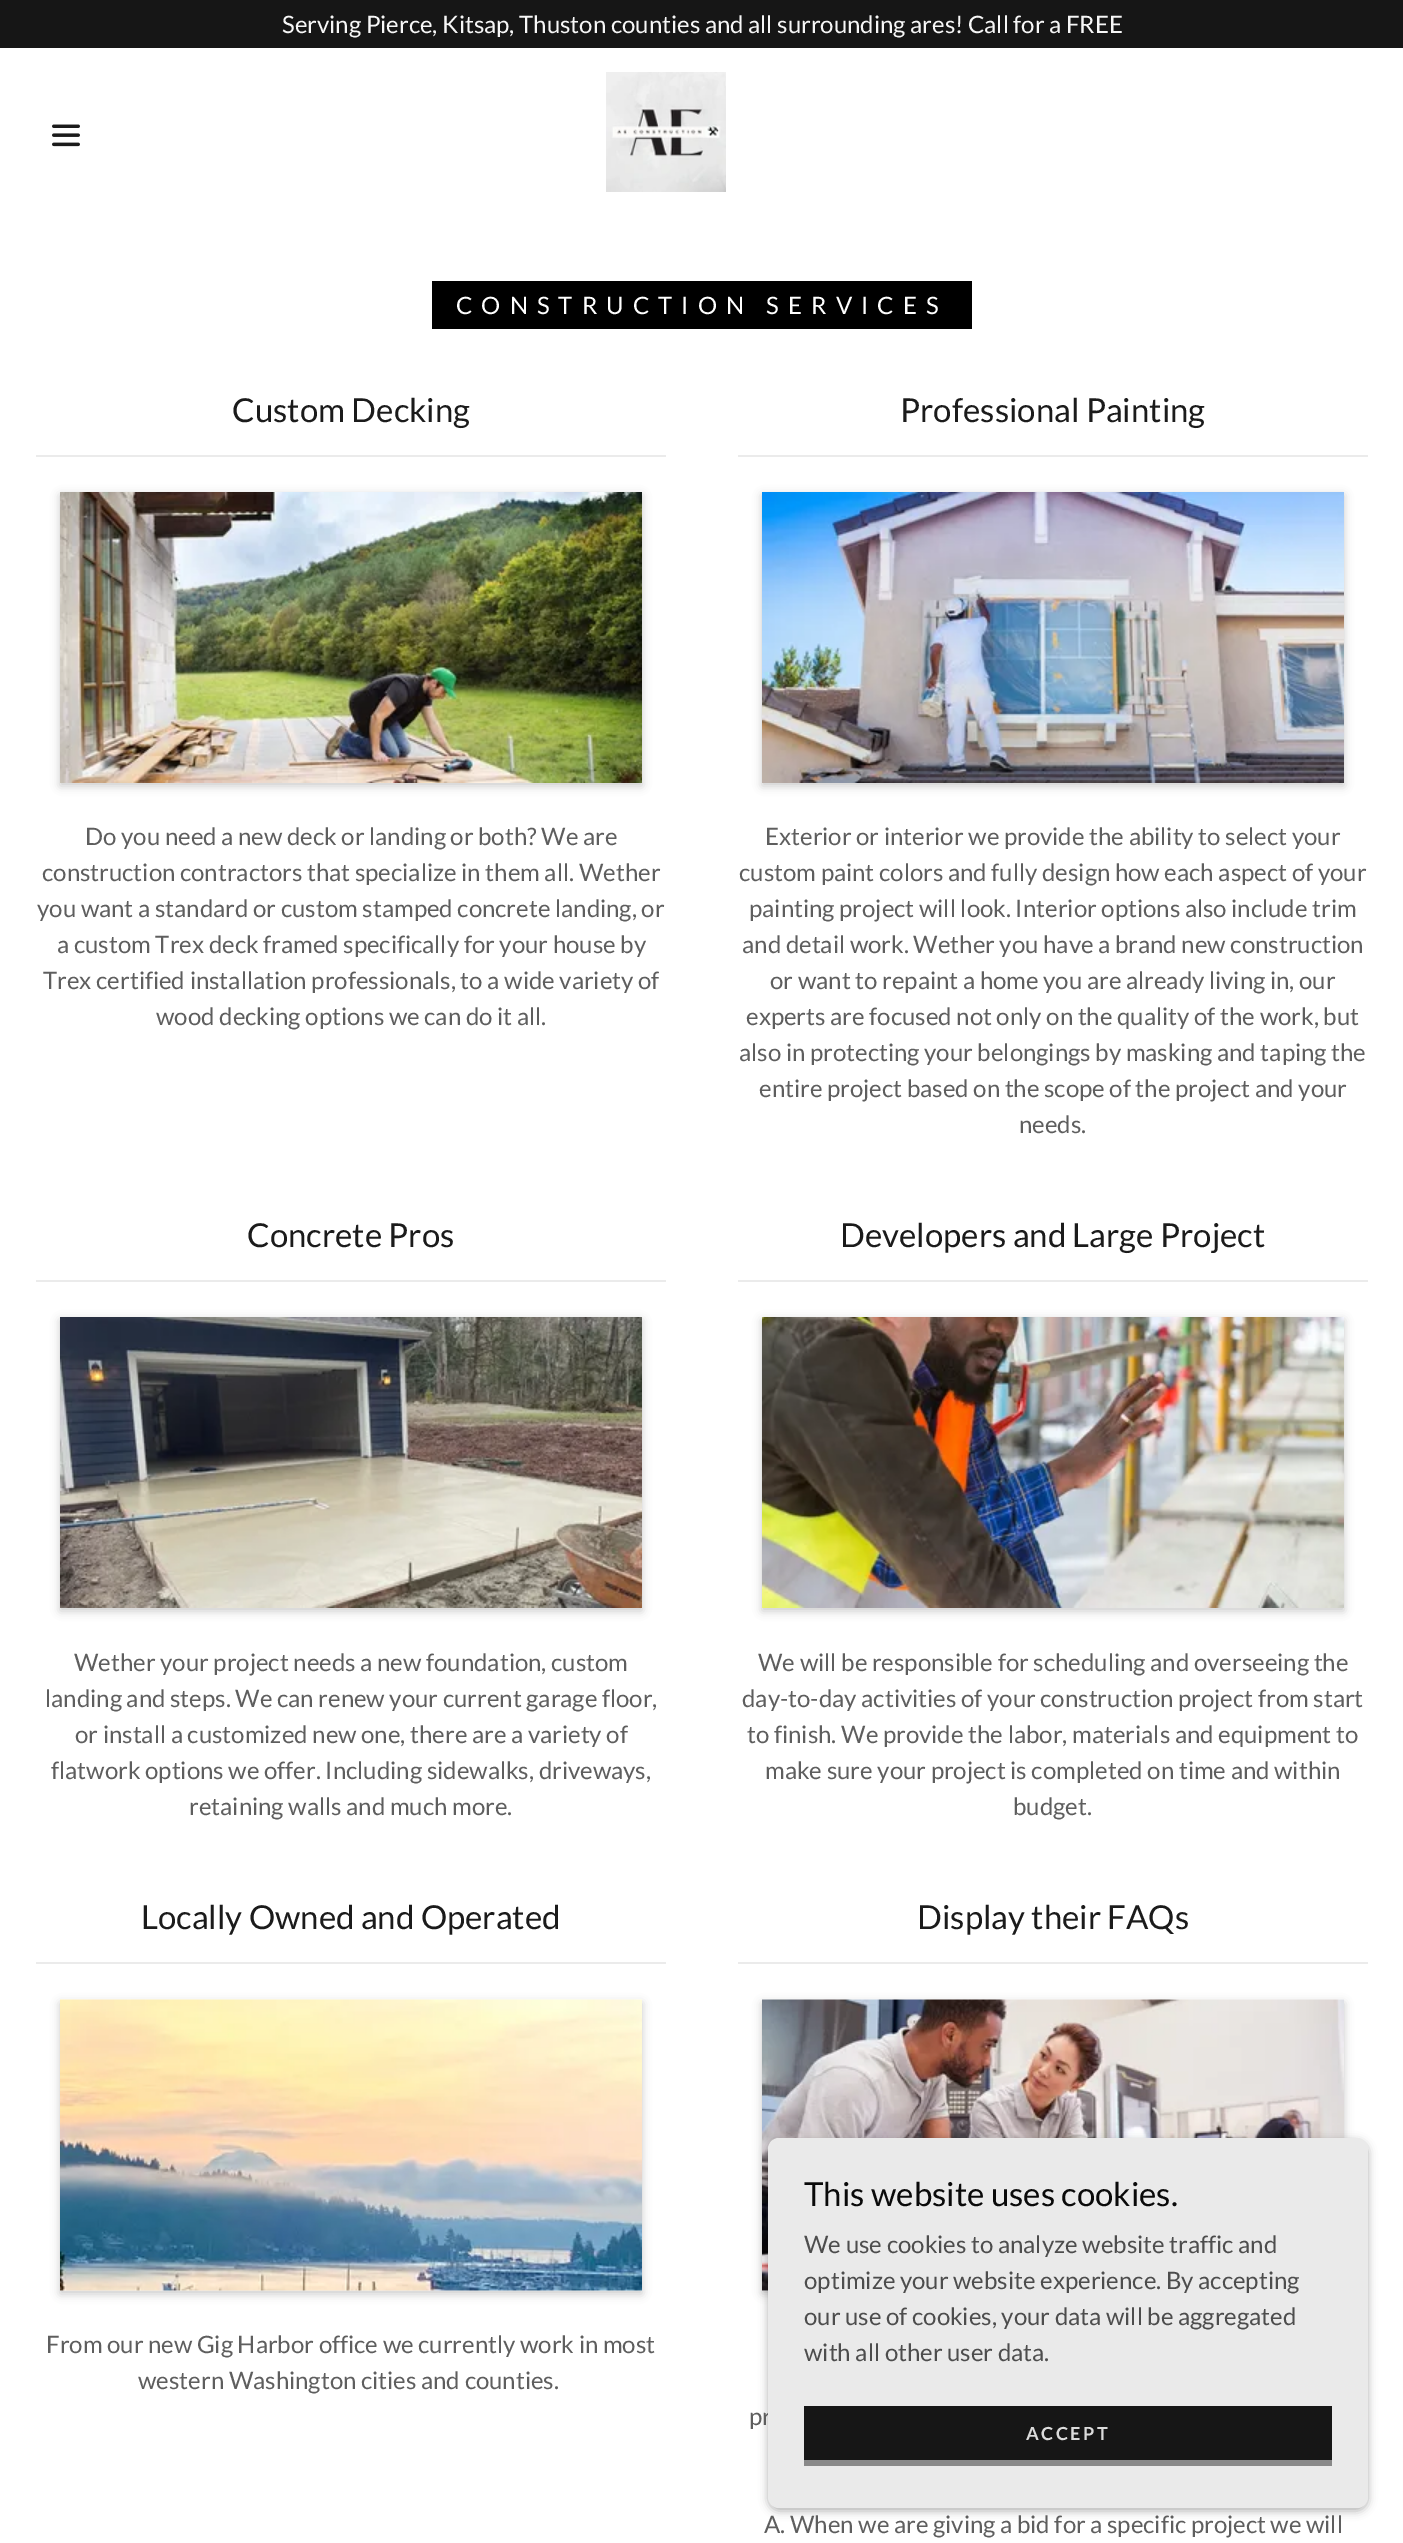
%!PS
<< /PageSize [1403 2543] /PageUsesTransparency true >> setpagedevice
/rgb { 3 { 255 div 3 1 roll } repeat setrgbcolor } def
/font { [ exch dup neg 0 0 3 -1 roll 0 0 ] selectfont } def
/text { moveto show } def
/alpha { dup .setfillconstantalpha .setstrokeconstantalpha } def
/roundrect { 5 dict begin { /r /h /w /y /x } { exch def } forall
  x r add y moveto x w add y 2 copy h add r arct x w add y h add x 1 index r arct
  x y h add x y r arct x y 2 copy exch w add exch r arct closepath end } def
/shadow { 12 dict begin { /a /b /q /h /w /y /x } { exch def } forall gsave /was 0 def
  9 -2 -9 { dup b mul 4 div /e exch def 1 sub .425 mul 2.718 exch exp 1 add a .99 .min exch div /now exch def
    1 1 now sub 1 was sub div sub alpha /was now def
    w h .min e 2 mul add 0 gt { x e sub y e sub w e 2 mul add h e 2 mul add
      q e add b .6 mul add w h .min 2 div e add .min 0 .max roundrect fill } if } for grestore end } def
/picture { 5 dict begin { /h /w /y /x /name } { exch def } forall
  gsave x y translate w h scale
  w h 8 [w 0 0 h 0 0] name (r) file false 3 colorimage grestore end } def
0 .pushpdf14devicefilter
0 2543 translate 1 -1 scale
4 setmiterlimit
255 255 255 rgb
0 0 1403 2543 rectfill
22 22 22 rgb
0 0 1403 48 rectfill
(img_01.rgb) 52 124 28 23 picture
(img_02.rgb) 606 72 120 120 picture
0 0 0 rgb
432 281 540 48 rectfill
235 235 235 rgb
36 455 630 2 rectfill
0 0 0 rgb
60 495 582 291 0 4.5 0.2 shadow
(img_03.rgb) 60 492 582 291 picture
235 235 235 rgb
738 455 630 2 rectfill
0 0 0 rgb
762 495 582 291 0 4.5 0.2 shadow
(img_04.rgb) 762 492 582 291 picture
235 235 235 rgb
36 1280 630 2 rectfill
0 0 0 rgb
60 1320 582 291 0 4.5 0.2 shadow
(img_05.rgb) 60 1317 582 291 picture
235 235 235 rgb
738 1280 630 2 rectfill
0 0 0 rgb
762 1320 582 291 0 4.5 0.2 shadow
(img_06.rgb) 762 1317 582 291 picture
235 235 235 rgb
36 1962 630 2 rectfill
0 0 0 rgb
60 2003 582 291 0 4.5 0.2 shadow
(img_07.rgb) 60 1999 582 292 picture
235 235 235 rgb
738 1962 630 2 rectfill
0 0 0 rgb
762 2003 582 291 0 4.5 0.2 shadow
(img_08.rgb) 762 1999 582 292 picture
768 2141 600 370 11 4.5 0.3 shadow
/Lato-Regular 24 font
247 247 247 rgb
(Serving Pierce, Kitsap, Thuston counties and all surrounding ares! Call for a FREE) 282 33 text
255 255 255 rgb
456 314 moveto 9 0 (CONSTRUCTION SERVICES) ashow
/Lato-Regular 33 font
27 27 27 rgb
(Custom Decking) 232 422 text
/Lato-Regular 24 font
94 94 94 rgb
(Do you need a new deck or landing or both? We are) 85 845 text
(construction contractors that specialize in them all. Wether) 42 881 text
(you want a standard or custom stamped concrete landing, or) 37 917 text
(a custom Trex deck framed specifically for your house by) 57 953 text
(Trex certified installation professionals, to a wide variety of) 43 989 text
(wood decking options we can do it all.) 156 1025 text
/Lato-Regular 33 font
27 27 27 rgb
(Professional Painting) 900 422 text
/Lato-Regular 24 font
94 94 94 rgb
(Exterior or interior we provide the ability to select your) 765 845 text
(custom paint colors and fully design how each aspect of your) 739 881 text
(painting project will look. Interior options also include trim) 749 917 text
(and detail work. Wether you have a brand new construction) 742 953 text
(or want to repaint a home you are already living in, our) 770 989 text
(experts are focused not only on the quality of the work, but) 746 1025 text
(also in protecting your belongings by masking and taping the) 739 1061 text
(entire project based on the scope of the project and your) 759 1097 text
(needs.) 1019 1133 text
/Lato-Regular 33 font
27 27 27 rgb
(Concrete Pros) 247 1247 text
/Lato-Regular 24 font
94 94 94 rgb
(Wether your project needs a new foundation, custom) 74 1671 text
(landing and steps. We can renew your current garage floor,) 45 1707 text
(or install a customized new one, there are a variety of) 75 1743 text
(flatwork options we offer. Including sidewalks, driveways,) 51 1779 text
(retaining walls and much more.) 189 1815 text
/Lato-Regular 33 font
27 27 27 rgb
(Developers and Large Project) 840 1247 text
/Lato-Regular 24 font
94 94 94 rgb
(We will be responsible for scheduling and overseeing the) 758 1671 text
(day-to-day activities of your construction project from start) 742 1707 text
(to finish. We provide the labor, materials and equipment to) 747 1743 text
(make sure your project is completed on time and within) 765 1779 text
(budget.) 1013 1815 text
/Lato-Regular 33 font
27 27 27 rgb
(Locally Owned and Operated) 141 1929 text
/Lato-Regular 24 font
94 94 94 rgb
(From our new Gig Harbor office we currently work in most) 46 2353 text
(western Washington cities and counties.) 138 2389 text
/Lato-Regular 33 font
27 27 27 rgb
(Display their FAQs) 917 1929 text
/Lato-Regular 24 font
94 94 94 rgb
(pr) 749 2425 text
(A. When we are giving a bid for a specific project we will) 764 2533 text
234 234 234 rgb
768 2138 600 370 11 roundrect fill
/Lato-Regular 33 font
10 10 10 rgb
(This website uses cookies.) 804 2206 text
/Lato-Regular 24 font
77 77 77 rgb
(We use cookies to analyze website traffic and) 804 2253 text
(optimize your website experience. By accepting) 804 2289 text
(our use of cookies, your data will be aggregated) 804 2325 text
(with all other user data.) 804 2361 text
22 22 22 rgb
804 2406 528 54 rectfill
137 137 137 rgb
804 2460 528 6 rectfill
/Lato-Bold 18 font
219 219 219 rgb
1026 2440 moveto 2.5 0 (ACCEPT) ashow
.poppdf14devicefilter showpage
